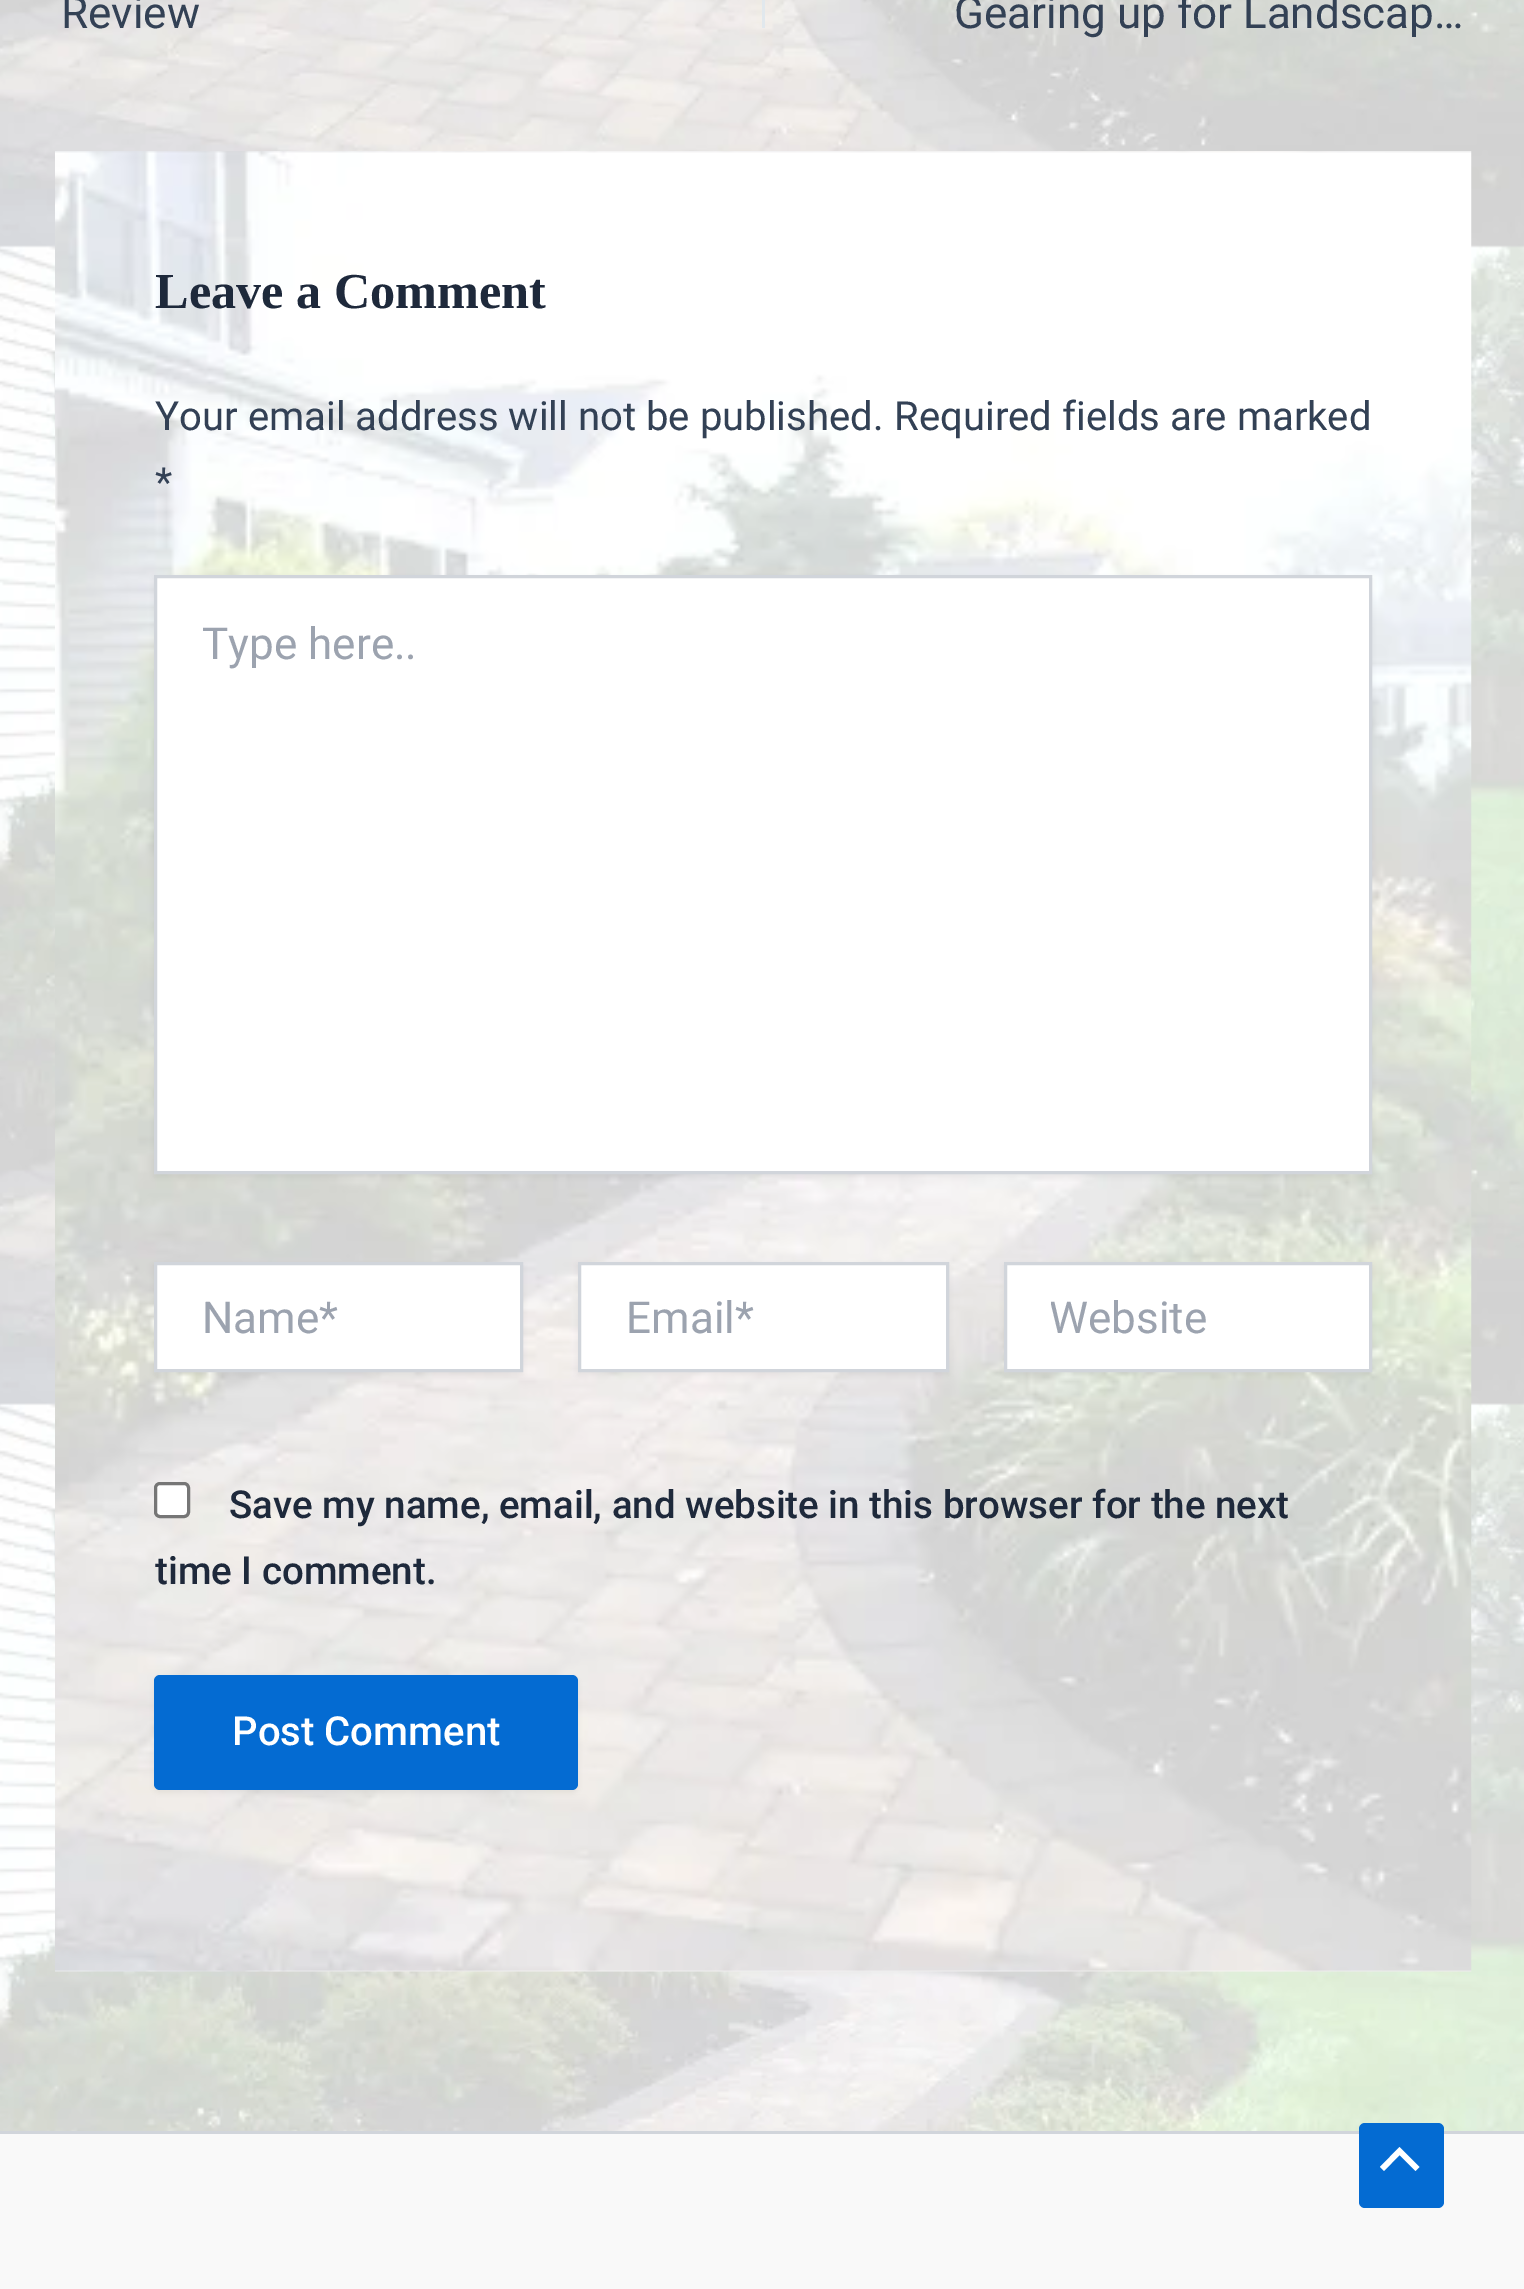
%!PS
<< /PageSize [1524 2289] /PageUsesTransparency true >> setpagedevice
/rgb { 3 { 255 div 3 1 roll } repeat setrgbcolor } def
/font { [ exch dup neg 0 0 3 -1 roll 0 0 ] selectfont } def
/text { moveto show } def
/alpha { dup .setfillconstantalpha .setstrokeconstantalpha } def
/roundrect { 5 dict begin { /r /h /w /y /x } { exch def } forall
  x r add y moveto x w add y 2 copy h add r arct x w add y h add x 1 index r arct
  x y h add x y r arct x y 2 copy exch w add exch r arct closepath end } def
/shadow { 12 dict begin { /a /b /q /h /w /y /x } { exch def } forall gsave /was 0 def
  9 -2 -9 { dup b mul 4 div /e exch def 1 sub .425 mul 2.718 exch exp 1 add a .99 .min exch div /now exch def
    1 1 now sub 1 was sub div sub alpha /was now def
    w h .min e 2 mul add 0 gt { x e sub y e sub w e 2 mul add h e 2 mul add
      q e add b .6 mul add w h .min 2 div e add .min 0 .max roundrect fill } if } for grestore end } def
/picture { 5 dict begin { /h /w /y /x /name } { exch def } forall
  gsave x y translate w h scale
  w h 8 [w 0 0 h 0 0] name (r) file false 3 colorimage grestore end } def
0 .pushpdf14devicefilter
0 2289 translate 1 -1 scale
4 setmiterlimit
255 255 255 rgb
0 0 1524 2289 rectfill
(img_01.rgb) 0 0 1524 2131 picture
225 232 237 rgb
762 0 3 28 rectfill
(img_02.rgb) 55 151 1417 1821 picture
0 0 0 rgb
154 578 1218 599 0 3 0.05 shadow
255 255 255 rgb
155.5 576.5 moveto 1215 0 rlineto 0 596 rlineto -1215 0 rlineto closepath gsave fill grestore
209 213 219 rgb
3 setlinewidth
stroke
0 0 0 rgb
154 1265 369 110 0 3 0.05 shadow
255 255 255 rgb
155.5 1263.5 moveto 366 0 rlineto 0 107 rlineto -366 0 rlineto closepath gsave fill grestore
209 213 219 rgb
stroke
0 0 0 rgb
578 1265 371 110 0 3 0.05 shadow
255 255 255 rgb
579.5 1263.5 moveto 368 0 rlineto 0 107 rlineto -368 0 rlineto closepath gsave fill grestore
209 213 219 rgb
stroke
0 0 0 rgb
1004 1265 368 110 0 3 0.05 shadow
255 255 255 rgb
1005.5 1263.5 moveto 365 0 rlineto 0 107 rlineto -365 0 rlineto closepath gsave fill grestore
209 213 219 rgb
stroke
255 255 255 rgb
155.5 1483.5 33 33 4.5 roundrect gsave fill grestore
118 118 118 rgb
stroke
0 0 0 rgb
154 1678 424 115 6 3 0.05 shadow
4 107 210 rgb
154 1675 424 115 6 roundrect fill
249 249 249 rgb
0 2134 1524 155 rectfill
209 213 219 rgb
0 2131 1524 3 rectfill
4 107 210 rgb
1359 2123 85 85 6 roundrect fill
255 255 255 rgb
1419.5 2167 moveto -20 -20 rlineto -19.5 20 rlineto 4 4 rlineto 15.5 -16 rlineto 16 16 rlineto closepath fill
/Roboto-Regular 44 font
51 65 85 rgb
(Review) 61 28 text
(Gearing up for Landscap…) 954 28 text
/LiberationSerif-Bold 50.25 font
30 41 59 rgb
(Leave a Comment) 155 308 text
/Roboto-Regular 40.1 font
51 65 85 rgb
(Your email address will not be published.) 155 430 text
(Required fields are marked) 894 430 text
(*) 155 496 text
/Roboto-Regular 44 font
156 163 175 rgb
(Type here..) 202 659 text
(Name*) 202 1333 text
(Email*) 626 1333 text
gsave
1051 1293 275 52 rectclip
(Website) 1049 1333 text
grestore
/Roboto-Medium 38.5 font
30 41 59 rgb
(Save my name, email, and website in this browser for the next) 229 1518 text
(time I comment.) 155 1584 text
/Roboto-Medium 40.1 font
255 255 255 rgb
(Post Comment) 232 1745 text
.poppdf14devicefilter showpage
